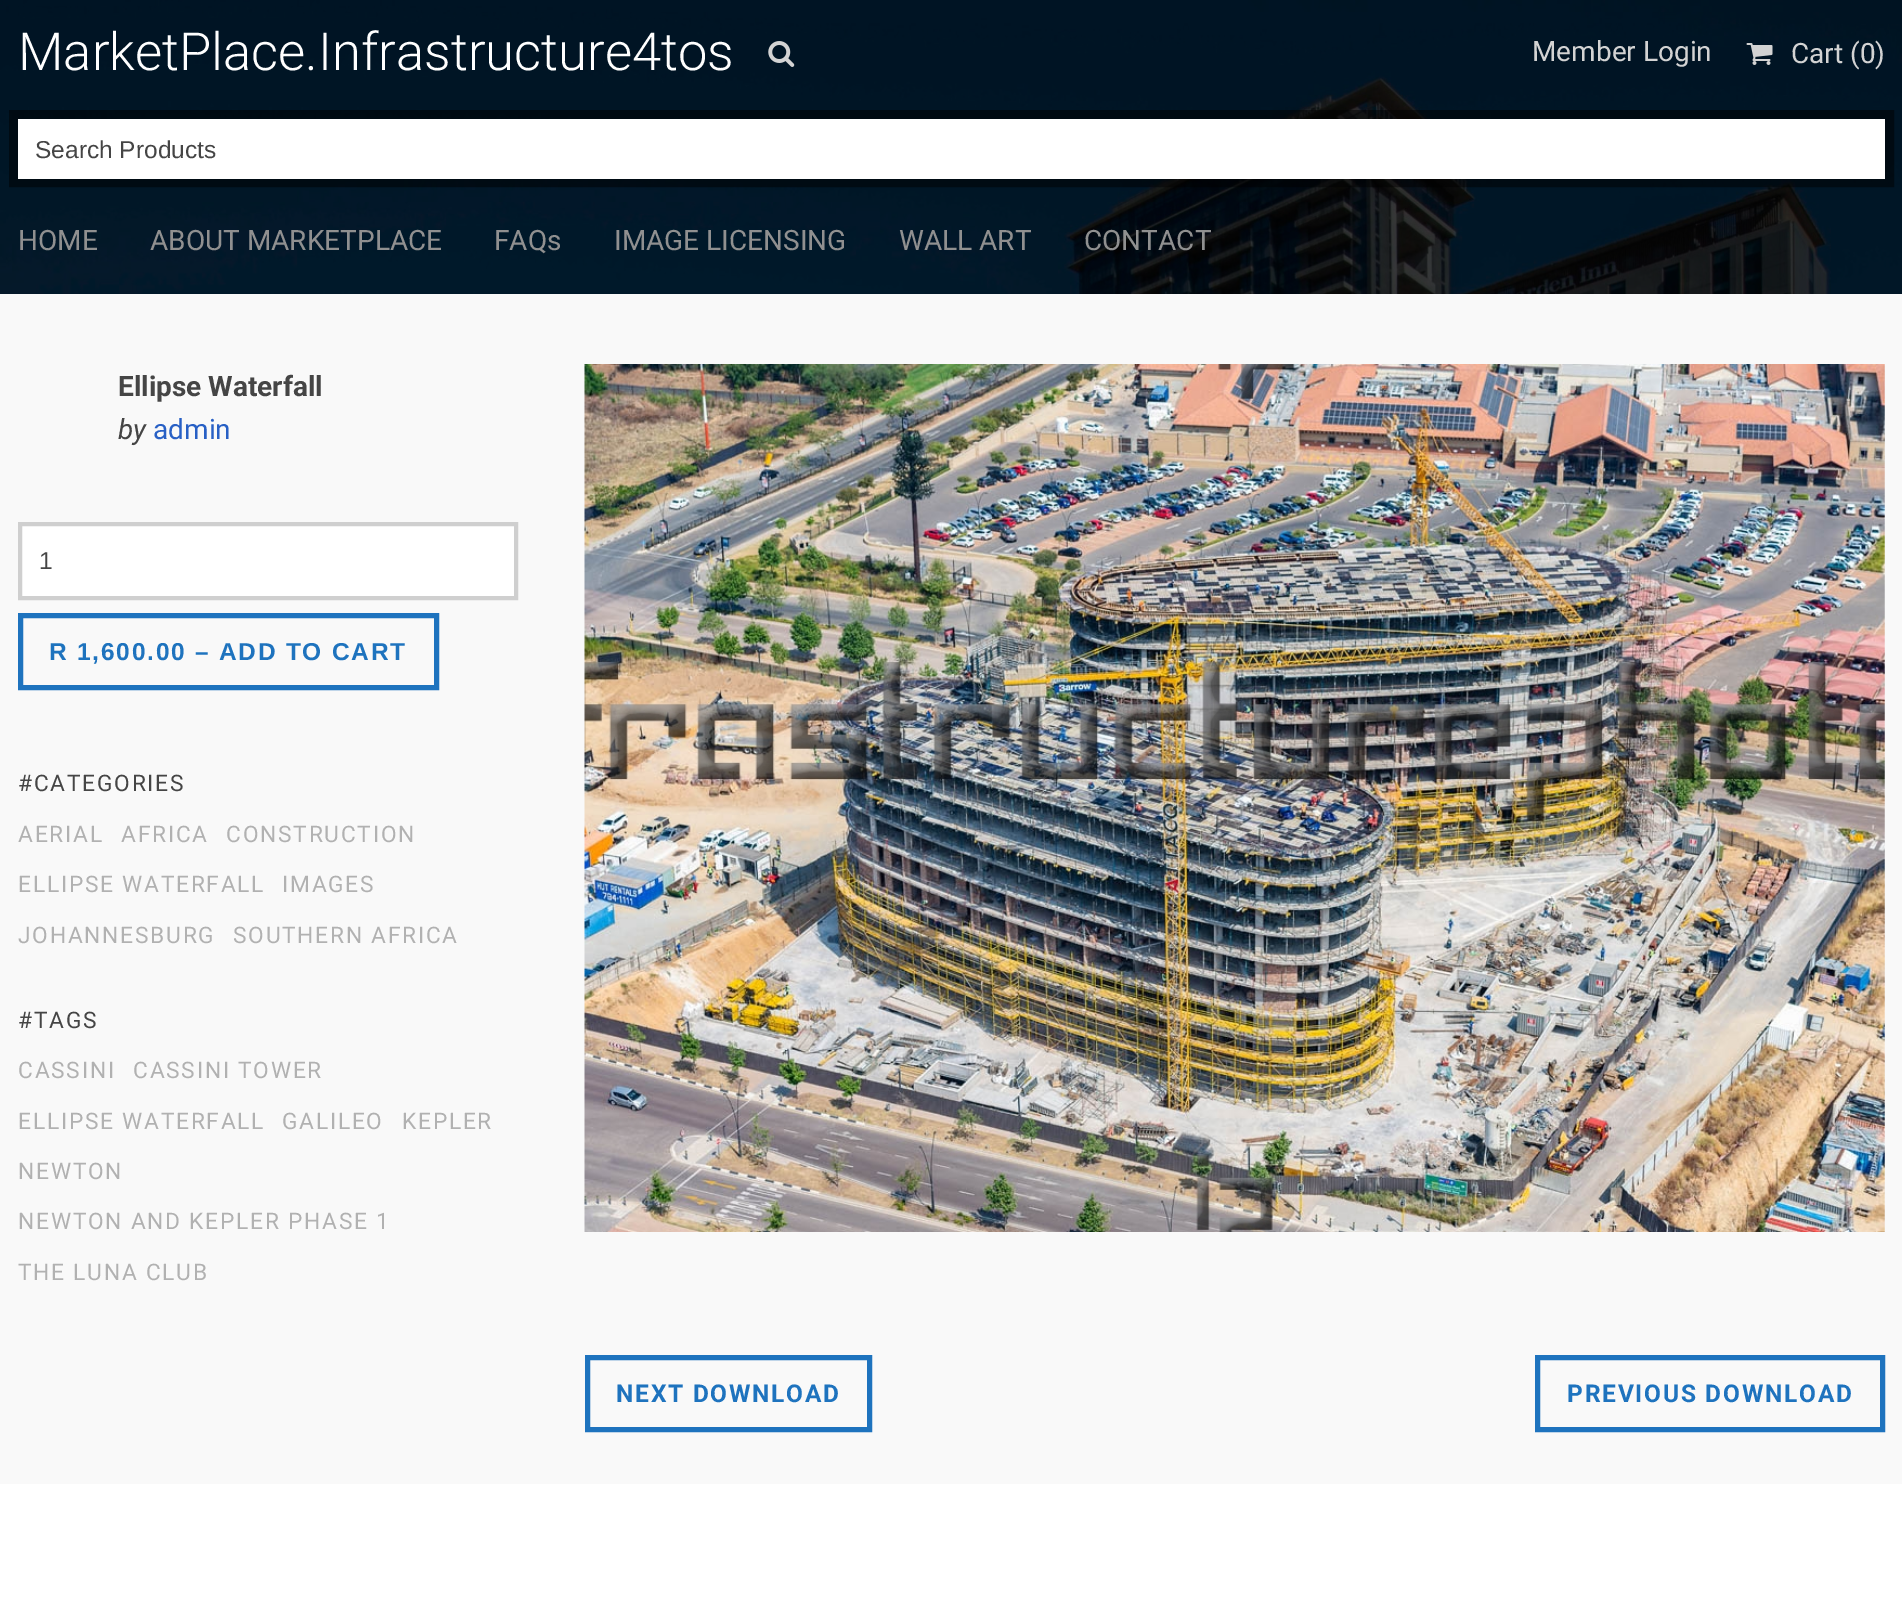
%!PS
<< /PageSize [1902 1612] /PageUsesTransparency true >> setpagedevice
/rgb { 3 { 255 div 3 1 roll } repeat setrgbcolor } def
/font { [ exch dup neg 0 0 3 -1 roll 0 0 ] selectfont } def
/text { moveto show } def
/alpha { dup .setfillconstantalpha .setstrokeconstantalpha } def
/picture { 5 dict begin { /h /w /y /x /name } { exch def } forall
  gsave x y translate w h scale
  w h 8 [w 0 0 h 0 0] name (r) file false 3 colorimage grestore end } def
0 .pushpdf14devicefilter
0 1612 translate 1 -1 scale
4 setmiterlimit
255 255 255 rgb
0 0 1902 1612 rectfill
(img_01.rgb) 0 0 1902 294 picture
0.75 alpha
0 0 0 rgb
0 0 1902 207 rectfill
1 alpha
(img_02.rgb) 768 41 27 26 picture
(img_03.rgb) 1746 43 27 22 picture
0.5 alpha
9 setlinewidth
13.5 114.5 1876 68 rectstroke
1 alpha
255 255 255 rgb
18 119 1867 60 rectfill
0.75 alpha
0 0 0 rgb
0 207 1902 87 rectfill
1 alpha
249 249 249 rgb
0 294 1902 1190 rectfill
255 255 255 rgb
20 524 moveto 496 0 rlineto 0 74 rlineto -496 0 rlineto closepath gsave fill grestore
207 207 207 rgb
4 setlinewidth
stroke
30 115 190 rgb
5 setlinewidth
20.5 615.5 416 72 rectstroke
(img_04.rgb) 584 364 1301 868 picture
587.5 1357.5 282 72 rectstroke
1537.5 1357.5 345 72 rectstroke
/Roboto-Light 52.5 font
255 255 255 rgb
(MarketPlace.Infrastructure4tos) 18 70 text
/Roboto-Regular 28 font
211 211 211 rgb
(Member Login) 1532 61 text
(Cart \(0\)) 1791 63 text
/LiberationSans-Regular 24.5 font
69 69 69 rgb
(Search Products) 35 158 text
/Roboto-Regular 28 font
144 144 144 rgb
(HOME) 18 250 text
(ABOUT MARKETPLACE) 150 250 text
(FAQs) 494 250 text
(IMAGE LICENSING) 614 250 text
(WALL ART) 899 250 text
(CONTACT) 1084 250 text
/Roboto-Bold 28 font
69 69 69 rgb
(Ellipse Waterfall) 118 396 text
/Roboto-Italic 28 font
(by) 118 439 text
/Roboto-Regular 28 font
40 96 197 rgb
(admin) 153 439 text
/LiberationSans-Regular 24.5 font
69 69 69 rgb
(1) 39 569 text
/LiberationSans-Bold 24.5 font
30 115 190 rgb
49 660 moveto 1.75 0 (R 1,600.00 – ADD TO CART) ashow
/Roboto-Regular 22.75 font
69 69 69 rgb
18 791 moveto 1.75 0 (#CATEGORIES) ashow
177 177 177 rgb
18 842 moveto 1.75 0 (AERIAL) ashow
121 842 moveto 1.75 0 (AFRICA) ashow
226 842 moveto 1.75 0 (CONSTRUCTION) ashow
18 892 moveto 1.75 0 (ELLIPSE WATERFALL) ashow
282 892 moveto 1.75 0 (IMAGES) ashow
18 943 moveto 1.75 0 (JOHANNESBURG) ashow
233 943 moveto 1.75 0 (SOUTHERN AFRICA) ashow
69 69 69 rgb
18 1028 moveto 1.75 0 (#TAGS) ashow
177 177 177 rgb
18 1078 moveto 1.75 0 (CASSINI) ashow
133 1078 moveto 1.75 0 (CASSINI TOWER) ashow
18 1129 moveto 1.75 0 (ELLIPSE WATERFALL) ashow
282 1129 moveto 1.75 0 (GALILEO) ashow
402 1129 moveto 1.75 0 (KEPLER) ashow
18 1179 moveto 1.75 0 (NEWTON) ashow
18 1229 moveto 1.75 0 (NEWTON AND KEPLER PHASE 1) ashow
18 1280 moveto 1.75 0 (THE LUNA CLUB) ashow
/Roboto-Bold 24.5 font
30 115 190 rgb
616 1402 moveto 1.75 0 (NEXT DOWNLOAD) ashow
1567 1402 moveto 1.75 0 (PREVIOUS DOWNLOAD) ashow
.poppdf14devicefilter showpage
